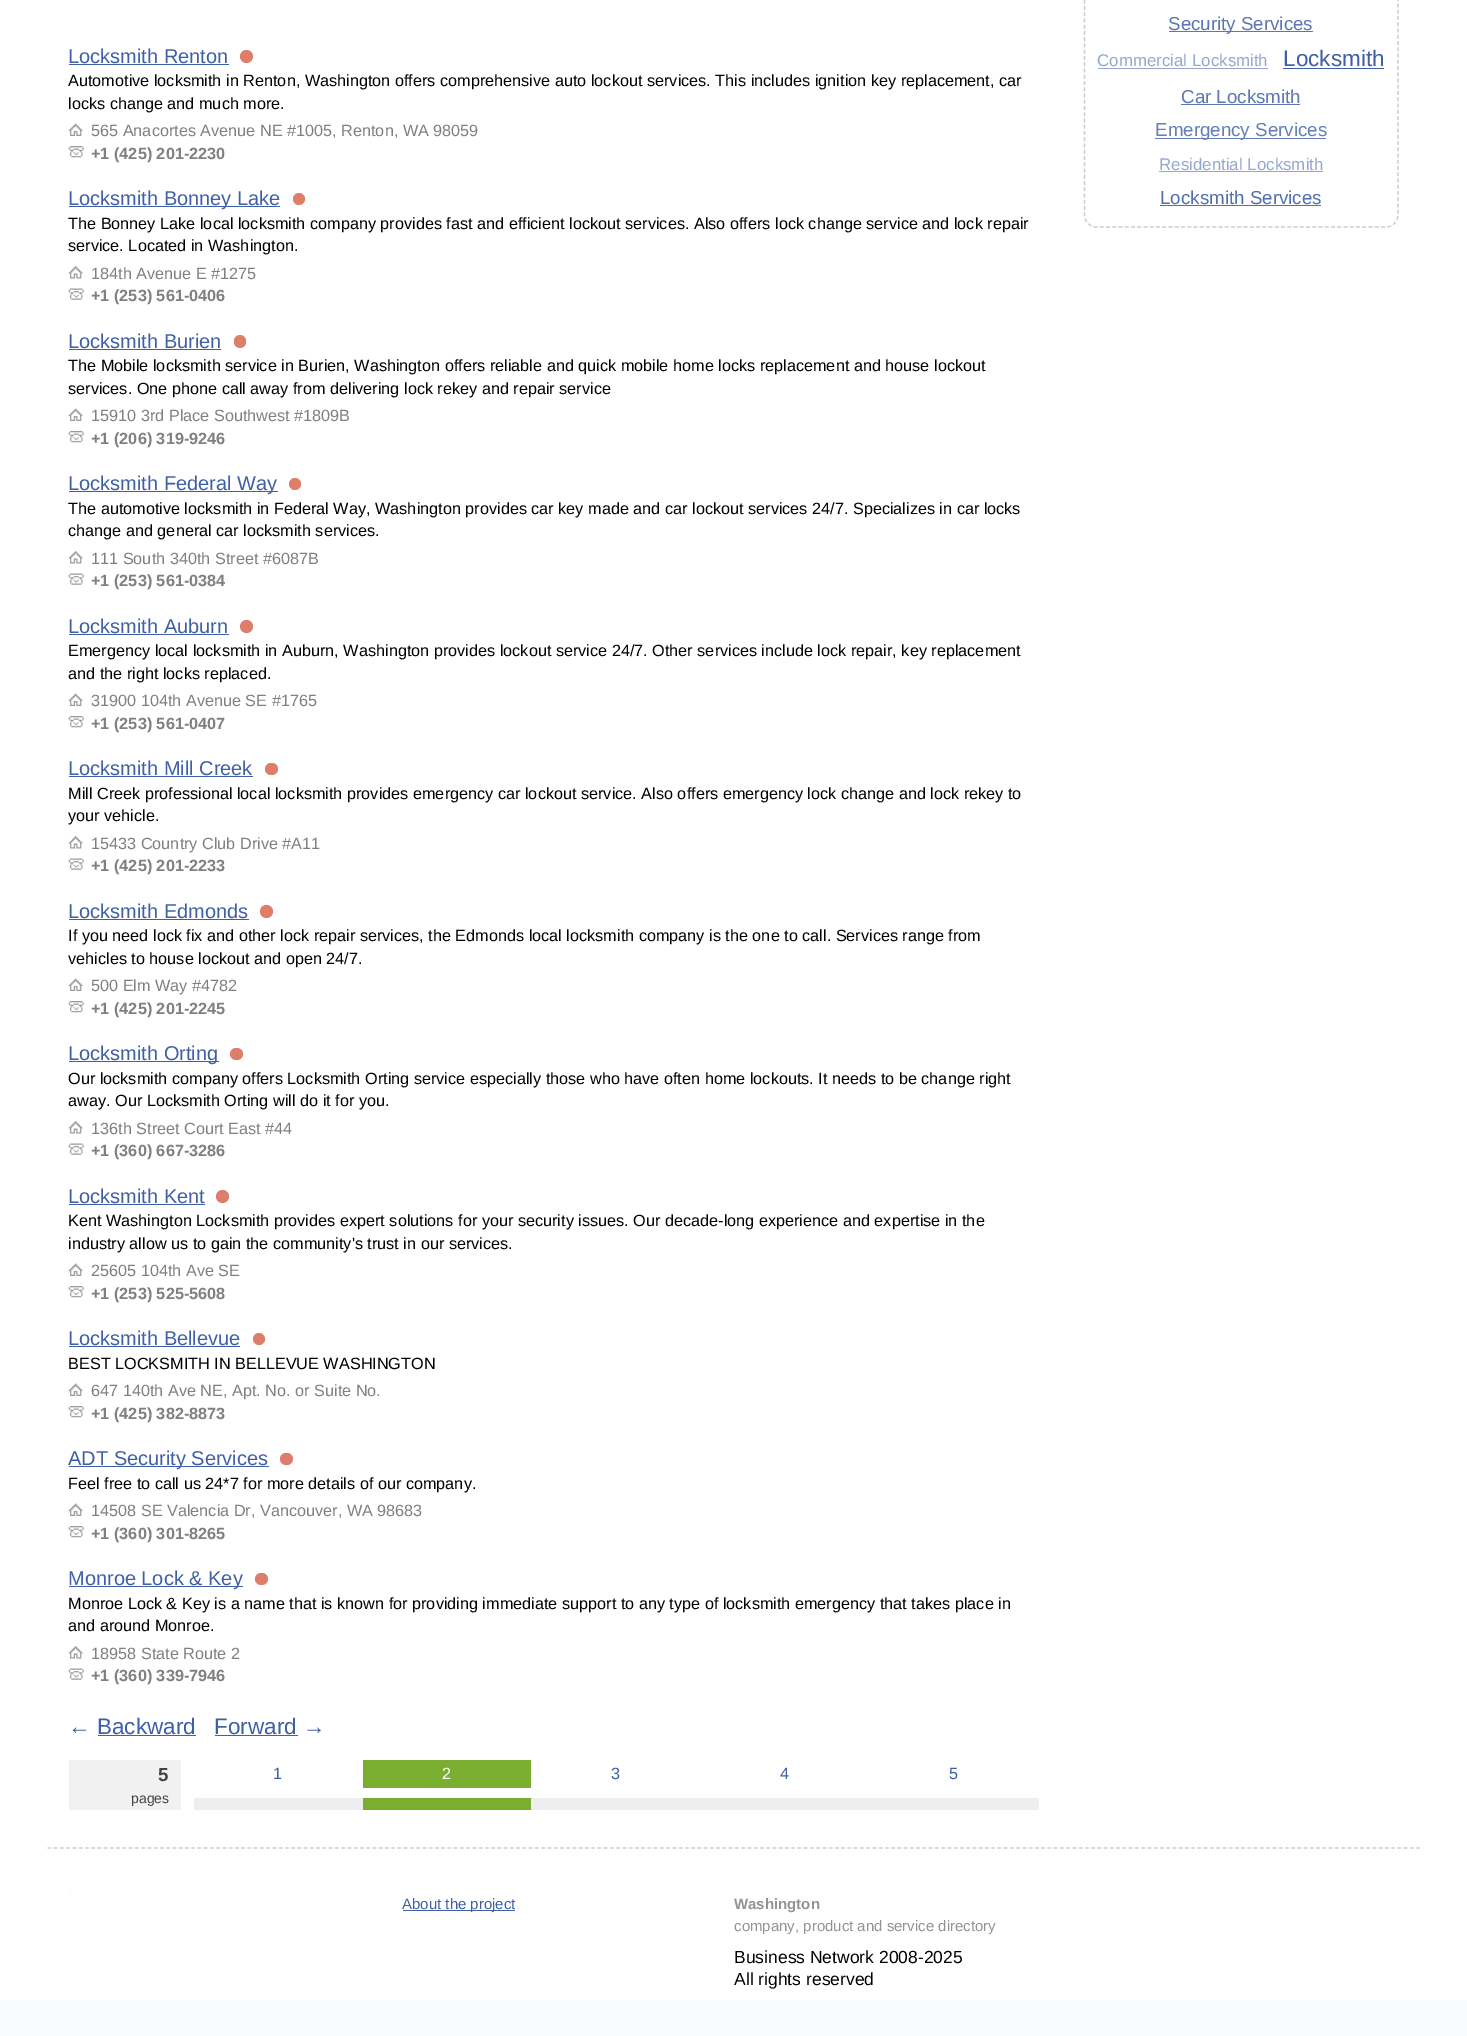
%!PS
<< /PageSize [1467 2036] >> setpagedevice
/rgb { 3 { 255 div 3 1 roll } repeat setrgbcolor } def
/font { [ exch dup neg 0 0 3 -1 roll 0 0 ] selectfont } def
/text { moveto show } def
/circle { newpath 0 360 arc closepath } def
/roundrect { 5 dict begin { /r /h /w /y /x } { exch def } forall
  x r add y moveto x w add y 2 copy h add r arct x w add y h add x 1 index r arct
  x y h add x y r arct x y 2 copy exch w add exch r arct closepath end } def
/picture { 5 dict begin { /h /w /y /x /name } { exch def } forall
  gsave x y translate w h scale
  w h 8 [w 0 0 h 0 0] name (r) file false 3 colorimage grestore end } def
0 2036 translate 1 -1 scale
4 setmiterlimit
255 255 255 rgb
0 0 1467 2036 rectfill
63 95 166 rgb
69 64 160 1 rectfill
221 126 107 rgb
246.5 56.5 6.5 circle fill
(img_01.rgb) 68 123 15 13 picture
(img_02.rgb) 68 146 16 12 picture
63 95 166 rgb
69 206 211 1 rectfill
221 126 107 rgb
299 199 6 circle fill
(img_03.rgb) 68 266 15 13 picture
(img_04.rgb) 68 288 16 12 picture
63 95 166 rgb
69 349 152 1 rectfill
221 126 107 rgb
234 335 12 13 6 roundrect fill
(img_01.rgb) 68 408 15 13 picture
(img_02.rgb) 68 431 16 12 picture
63 95 166 rgb
69 491 209 1 rectfill
221 126 107 rgb
295 484 6 circle fill
(img_03.rgb) 68 551 15 13 picture
(img_04.rgb) 68 573 16 12 picture
63 95 166 rgb
69 634 160 1 rectfill
221 126 107 rgb
246.5 626.5 6.5 circle fill
(img_01.rgb) 68 693 15 13 picture
(img_05.rgb) 68 716 16 12 picture
63 95 166 rgb
69 776 184 1 rectfill
221 126 107 rgb
265 763 13 12 6 roundrect fill
(img_03.rgb) 68 836 15 13 picture
(img_04.rgb) 68 858 16 12 picture
63 95 166 rgb
69 919 180 1 rectfill
221 126 107 rgb
266.5 911.5 6.5 circle fill
(img_01.rgb) 68 978 15 13 picture
(img_02.rgb) 68 1001 16 12 picture
63 95 166 rgb
69 1061 150 1 rectfill
221 126 107 rgb
230 1048 13 12 6 roundrect fill
(img_03.rgb) 68 1121 15 13 picture
(img_04.rgb) 68 1143 16 12 picture
63 95 166 rgb
69 1204 136 1 rectfill
221 126 107 rgb
222.5 1196.5 6.5 circle fill
(img_01.rgb) 68 1263 15 13 picture
(img_02.rgb) 68 1286 16 12 picture
63 95 166 rgb
69 1346 171 1 rectfill
221 126 107 rgb
259 1339 6 circle fill
(img_01.rgb) 68 1383 15 13 picture
(img_02.rgb) 68 1406 16 12 picture
63 95 166 rgb
69 1466 200 1 rectfill
221 126 107 rgb
280 1453 13 12 6 roundrect fill
(img_01.rgb) 68 1503 15 13 picture
(img_02.rgb) 68 1526 16 12 picture
63 95 166 rgb
69 1586 174 1 rectfill
221 126 107 rgb
255 1573 13 12 6 roundrect fill
(img_03.rgb) 68 1646 15 13 picture
(img_04.rgb) 68 1668 16 12 picture
63 95 166 rgb
98 1735 98 1 rectfill
215 1735 83 1 rectfill
241 241 241 rgb
69 1760 112 50 rectfill
121 174 49 rgb
363 1760 168 28 rectfill
238 238 238 rgb
194 1798 845 12 rectfill
121 174 49 rgb
363 1798 168 12 rectfill
204 204 204 rgb
1.2 setlinewidth
[3.75 2.5] 0 setdash
1096 -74.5 moveto 290 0 rlineto 7 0 12 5.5 12 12 rcurveto 0 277.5 rlineto 0 6.5 -5 12 -12 12 rcurveto -290 0 rlineto -6.5 0 -11.5 -5.5 -11.5 -12 rcurveto 0 -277.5 rlineto 0 -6.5 5 -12 11.5 -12 rcurveto closepath stroke
92 119 179 rgb
1169 31 144 1 rectfill
149 167 206 rgb
1098 68 170 1 rectfill
63 95 166 rgb
1283 68 101 1 rectfill
92 119 179 rgb
1181 104 119 1 rectfill
101 127 184 rgb
1155 138 171 1 rectfill
149 167 206 rgb
1159 171 164 1 rectfill
82 111 175 rgb
1160 205 161 1 rectfill
250 251 252 rgb
0 2000 1467 36 rectfill
204 204 204 rgb
47.5 1848 moveto 1373.5 0 rlineto stroke
(img_06.rgb) 70 1892 1 2 picture
63 95 166 rgb
403 1910 112 1 rectfill
/LiberationSans-Regular 20 font
(Locksmith Renton) 68 63 text
/LiberationSans-Regular 16.25 font
0 0 0 rgb
(Automotive locksmith in Renton, Washington offers comprehensive auto lockout services. This includes ignition key replacement, car) 68 86 text
(locks change and much more.) 68 109 text
128 128 128 rgb
(565 Anacortes Avenue NE #1005, Renton, WA 98059) 91 136 text
/LiberationSans-Bold 16.25 font
(+1 \(425\) 201-2230) 91 159 text
/LiberationSans-Regular 20 font
63 95 166 rgb
(Locksmith Bonney Lake) 68 205 text
/LiberationSans-Regular 16.25 font
0 0 0 rgb
(The Bonney Lake local locksmith company provides fast and efficient lockout services. Also offers lock change service and lock repair) 68 229 text
(service. Located in Washington.) 68 251 text
128 128 128 rgb
(184th Avenue E #1275) 91 279 text
/LiberationSans-Bold 16.25 font
(+1 \(253\) 561-0406) 91 301 text
/LiberationSans-Regular 20 font
63 95 166 rgb
(Locksmith Burien) 68 348 text
/LiberationSans-Regular 16.25 font
0 0 0 rgb
(The Mobile locksmith service in Burien, Washington offers reliable and quick mobile home locks replacement and house lockout) 68 371 text
(services. One phone call away from delivering lock rekey and repair service) 68 394 text
128 128 128 rgb
(15910 3rd Place Southwest #1809B) 91 421 text
/LiberationSans-Bold 16.25 font
(+1 \(206\) 319-9246) 91 444 text
/LiberationSans-Regular 20 font
63 95 166 rgb
(Locksmith Federal Way) 68 490 text
/LiberationSans-Regular 16.25 font
0 0 0 rgb
(The automotive locksmith in Federal Way, Washington provides car key made and car lockout services 24/7. Specializes in car locks) 68 514 text
(change and general car locksmith services.) 68 536 text
128 128 128 rgb
(111 South 340th Street #6087B) 91 564 text
/LiberationSans-Bold 16.25 font
(+1 \(253\) 561-0384) 91 586 text
/LiberationSans-Regular 20 font
63 95 166 rgb
(Locksmith Auburn) 68 633 text
/LiberationSans-Regular 16.25 font
0 0 0 rgb
(Emergency local locksmith in Auburn, Washington provides lockout service 24/7. Other services include lock repair, key replacement) 68 656 text
(and the right locks replaced.) 68 679 text
128 128 128 rgb
(31900 104th Avenue SE #1765) 91 706 text
/LiberationSans-Bold 16.25 font
(+1 \(253\) 561-0407) 91 729 text
/LiberationSans-Regular 20 font
63 95 166 rgb
(Locksmith Mill Creek) 68 775 text
/LiberationSans-Regular 16.25 font
0 0 0 rgb
(Mill Creek professional local locksmith provides emergency car lockout service. Also offers emergency lock change and lock rekey to) 68 799 text
(your vehicle.) 68 821 text
128 128 128 rgb
(15433 Country Club Drive #A11) 91 849 text
/LiberationSans-Bold 16.25 font
(+1 \(425\) 201-2233) 91 871 text
/LiberationSans-Regular 20 font
63 95 166 rgb
(Locksmith Edmonds) 68 918 text
/LiberationSans-Regular 16.25 font
0 0 0 rgb
(If you need lock fix and other lock repair services, the Edmonds local locksmith company is the one to call. Services range from) 68 941 text
(vehicles to house lockout and open 24/7.) 68 964 text
128 128 128 rgb
(500 Elm Way #4782) 91 991 text
/LiberationSans-Bold 16.25 font
(+1 \(425\) 201-2245) 91 1014 text
/LiberationSans-Regular 20 font
63 95 166 rgb
(Locksmith Orting) 68 1060 text
/LiberationSans-Regular 16.25 font
0 0 0 rgb
(Our locksmith company offers Locksmith Orting service especially those who have often home lockouts. It needs to be change right) 68 1084 text
(away. Our Locksmith Orting will do it for you.) 68 1106 text
128 128 128 rgb
(136th Street Court East #44) 91 1134 text
/LiberationSans-Bold 16.25 font
(+1 \(360\) 667-3286) 91 1156 text
/LiberationSans-Regular 20 font
63 95 166 rgb
(Locksmith Kent) 68 1203 text
/LiberationSans-Regular 16.25 font
0 0 0 rgb
(Kent Washington Locksmith provides expert solutions for your security issues. Our decade-long experience and expertise in the) 68 1226 text
(industry allow us to gain the community's trust in our services.) 68 1249 text
128 128 128 rgb
(25605 104th Ave SE) 91 1276 text
/LiberationSans-Bold 16.25 font
(+1 \(253\) 525-5608) 91 1299 text
/LiberationSans-Regular 20 font
63 95 166 rgb
(Locksmith Bellevue) 68 1345 text
/LiberationSans-Regular 16.25 font
0 0 0 rgb
(BEST LOCKSMITH IN BELLEVUE WASHINGTON) 68 1369 text
128 128 128 rgb
(647 140th Ave NE, Apt. No. or Suite No.) 91 1396 text
/LiberationSans-Bold 16.25 font
(+1 \(425\) 382-8873) 91 1419 text
/LiberationSans-Regular 20 font
63 95 166 rgb
(ADT Security Services) 68 1465 text
/LiberationSans-Regular 16.25 font
0 0 0 rgb
(Feel free to call us 24*7 for more details of our company.) 68 1489 text
128 128 128 rgb
(14508 SE Valencia Dr, Vancouver, WA 98683) 91 1516 text
/LiberationSans-Bold 16.25 font
(+1 \(360\) 301-8265) 91 1539 text
/LiberationSans-Regular 20 font
63 95 166 rgb
(Monroe Lock & Key) 68 1585 text
/LiberationSans-Regular 16.25 font
0 0 0 rgb
(Monroe Lock & Key is a name that is known for providing immediate support to any type of locksmith emergency that takes place in) 68 1609 text
(and around Monroe.) 68 1631 text
128 128 128 rgb
(18958 State Route 2) 91 1659 text
/LiberationSans-Bold 16.25 font
(+1 \(360\) 339-7946) 91 1681 text
/LiberationSans-Regular 22.5 font
63 95 166 rgb
(← Backward) 68 1734 text
(Forward →) 214 1734 text
/LiberationSans-Bold 18.75 font
68 68 68 rgb
(5) 158 1781 text
/LiberationSans-Regular 14 font
(pages) 131 1803 text
/LiberationSans-Regular 16.25 font
63 95 166 rgb
(1) 273 1779 text
255 255 255 rgb
(2) 442 1779 text
63 95 166 rgb
(3) 611 1779 text
(4) 780 1779 text
(5) 949 1779 text
/LiberationSans-Regular 18.75 font
92 119 179 rgb
(Security Services) 1168 30 text
/LiberationSans-Regular 16.9 font
149 167 206 rgb
(Commercial Locksmith) 1097 66 text
/LiberationSans-Regular 22.5 font
63 95 166 rgb
(Locksmith) 1283 66 text
/LiberationSans-Regular 18.75 font
92 119 179 rgb
(Car Locksmith) 1181 103 text
101 127 184 rgb
(Emergency Services) 1155 136 text
/LiberationSans-Regular 16.9 font
149 167 206 rgb
(Residential Locksmith) 1159 170 text
/LiberationSans-Regular 18.75 font
82 111 175 rgb
(Locksmith Services) 1160 204 text
/LiberationSans-Regular 15 font
63 95 166 rgb
(About the project) 402 1909 text
/LiberationSans-Bold 15 font
147 147 147 rgb
(Washington) 734 1909 text
/LiberationSans-Regular 15 font
(company, product and service directory) 734 1931 text
/LiberationSans-Regular 17.5 font
0 0 0 rgb
(Business Network 2008-2025) 734 1963 text
(All rights reserved) 734 1985 text
showpage
